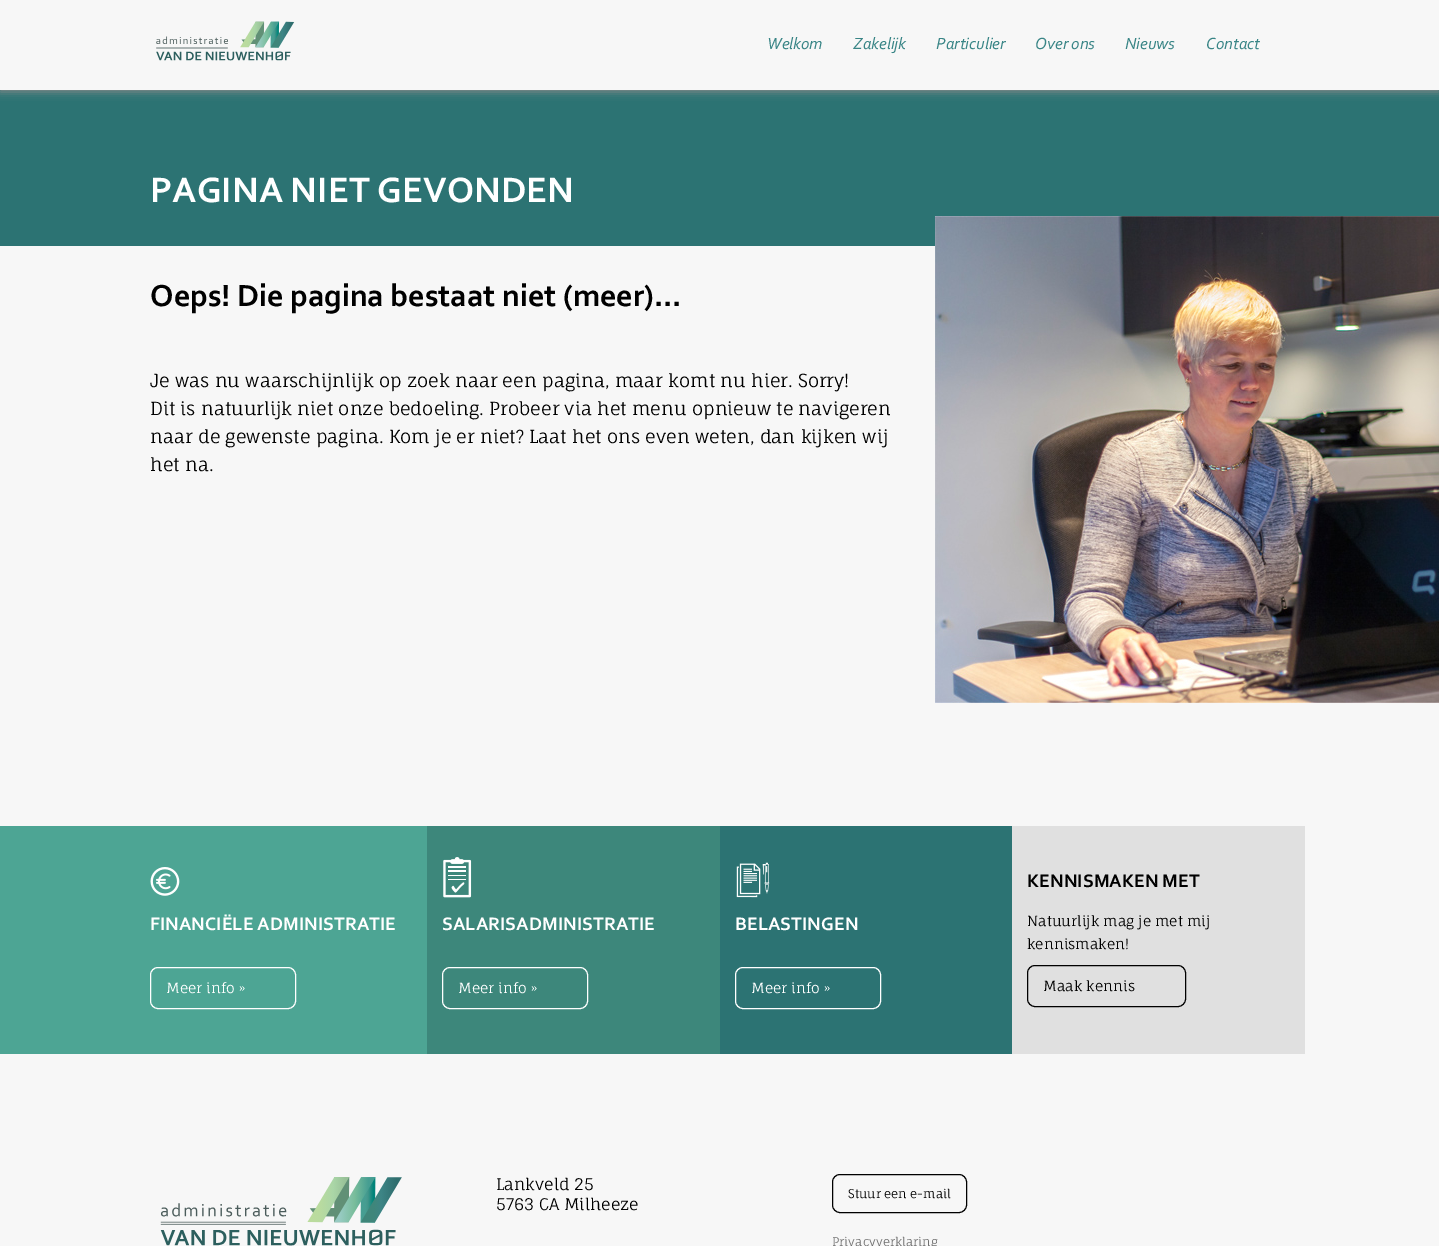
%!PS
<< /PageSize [1439 1246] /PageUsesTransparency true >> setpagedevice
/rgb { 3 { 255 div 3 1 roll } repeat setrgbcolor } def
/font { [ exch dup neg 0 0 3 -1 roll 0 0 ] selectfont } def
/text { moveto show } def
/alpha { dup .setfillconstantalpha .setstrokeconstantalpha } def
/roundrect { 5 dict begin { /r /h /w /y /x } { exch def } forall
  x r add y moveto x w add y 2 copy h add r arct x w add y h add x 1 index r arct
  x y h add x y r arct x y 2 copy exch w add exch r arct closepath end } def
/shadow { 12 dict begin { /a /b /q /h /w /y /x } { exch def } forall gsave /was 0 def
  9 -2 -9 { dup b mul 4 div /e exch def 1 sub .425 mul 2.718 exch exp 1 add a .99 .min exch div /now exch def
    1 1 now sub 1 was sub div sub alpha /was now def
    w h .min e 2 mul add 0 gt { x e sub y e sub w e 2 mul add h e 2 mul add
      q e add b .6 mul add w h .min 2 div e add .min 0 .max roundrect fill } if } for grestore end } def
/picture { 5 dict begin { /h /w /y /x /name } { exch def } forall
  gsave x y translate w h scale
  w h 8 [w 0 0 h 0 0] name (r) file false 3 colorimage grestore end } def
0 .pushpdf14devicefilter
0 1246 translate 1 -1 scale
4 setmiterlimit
247 247 247 rgb
0 0 1439 1246 rectfill
44 115 115 rgb
0 90 1439 156 rectfill
136 136 136 rgb
0 2 1439 90 0 4 1 shadow
247 247 247 rgb
0 0 1439 90 rectfill
(img_01.rgb) 156 21 139 40 picture
(img_02.rgb) 935 216 504 487 picture
77 165 148 rgb
0 826 427 228 rectfill
(img_03.rgb) 150 867 30 29 picture
255 255 255 rgb
150.5 967.5 145 41 7.5 roundrect stroke
61 135 123 rgb
427 826 293 228 rectfill
(img_04.rgb) 443 857 29 41 picture
255 255 255 rgb
442.5 967.5 145 41 7.5 roundrect stroke
44 115 115 rgb
720 826 292 228 rectfill
(img_05.rgb) 736 862 34 36 picture
255 255 255 rgb
735.5 967.5 145 41 7.5 roundrect stroke
224 224 224 rgb
1012 826 293 228 rectfill
0 0 0 rgb
1027.5 965.5 158 41 7.5 roundrect stroke
(img_06.rgb) 160 1177 242 69 picture
832.5 1174.5 134 38 7.5 roundrect stroke
/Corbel-Italic 17 font
57 133 134 rgb
(Welkom) 767 49 text
(Zakelijk) 853 49 text
(Particulier) 936 49 text
(Over ons) 1035 49 text
(Nieuws) 1125 49 text
(Contact) 1206 49 text
/Corbel-Bold 37 font
255 255 255 rgb
(PAGINA NIET GEVONDEN) 150 202 text
/Corbel-Bold 32 font
0 0 0 rgb
(Oeps! Die pagina bestaat niet \(meer\)...) 150 306 text
/FaunaOne-Regular 18 font
(Je was nu waarschijnlijk op zoek naar een pagina, maar komt nu hier. Sorry!) 150 387 text
(Dit is natuurlijk niet onze bedoeling. Probeer via het menu opnieuw te navigeren) 150 415 text
(naar de gewenste pagina. Kom je er niet? Laat het ons even weten, dan kijken wij) 150 443 text
(het na.) 150 471 text
/Corbel-Bold 19 font
255 255 255 rgb
(FINANCIËLE ADMINISTRATIE) 150 930 text
/FaunaOne-Regular 14 font
(Meer info ») 166 993 text
/Corbel-Bold 19 font
(SALARISADMINISTRATIE) 442 930 text
/FaunaOne-Regular 14 font
(Meer info ») 458 993 text
/Corbel-Bold 19 font
(BELASTINGEN) 735 930 text
/FaunaOne-Regular 14 font
(Meer info ») 751 993 text
/Corbel-Bold 19 font
0 0 0 rgb
(KENNISMAKEN MET) 1027 887 text
/FaunaOne-Regular 14 font
(Natuurlijk mag je met mij) 1027 926 text
(kennismaken!) 1027 949 text
(Maak kennis) 1043 991 text
/FaunaOne-Regular 16 font
(Lankveld 25) 496 1190 text
(5763 CA Milheeze) 496 1210 text
/FaunaOne-Regular 12 font
(Stuur een e-mail) 848 1198 text
111 111 111 rgb
(Privacyverklaring) 832 1246 text
.poppdf14devicefilter showpage
